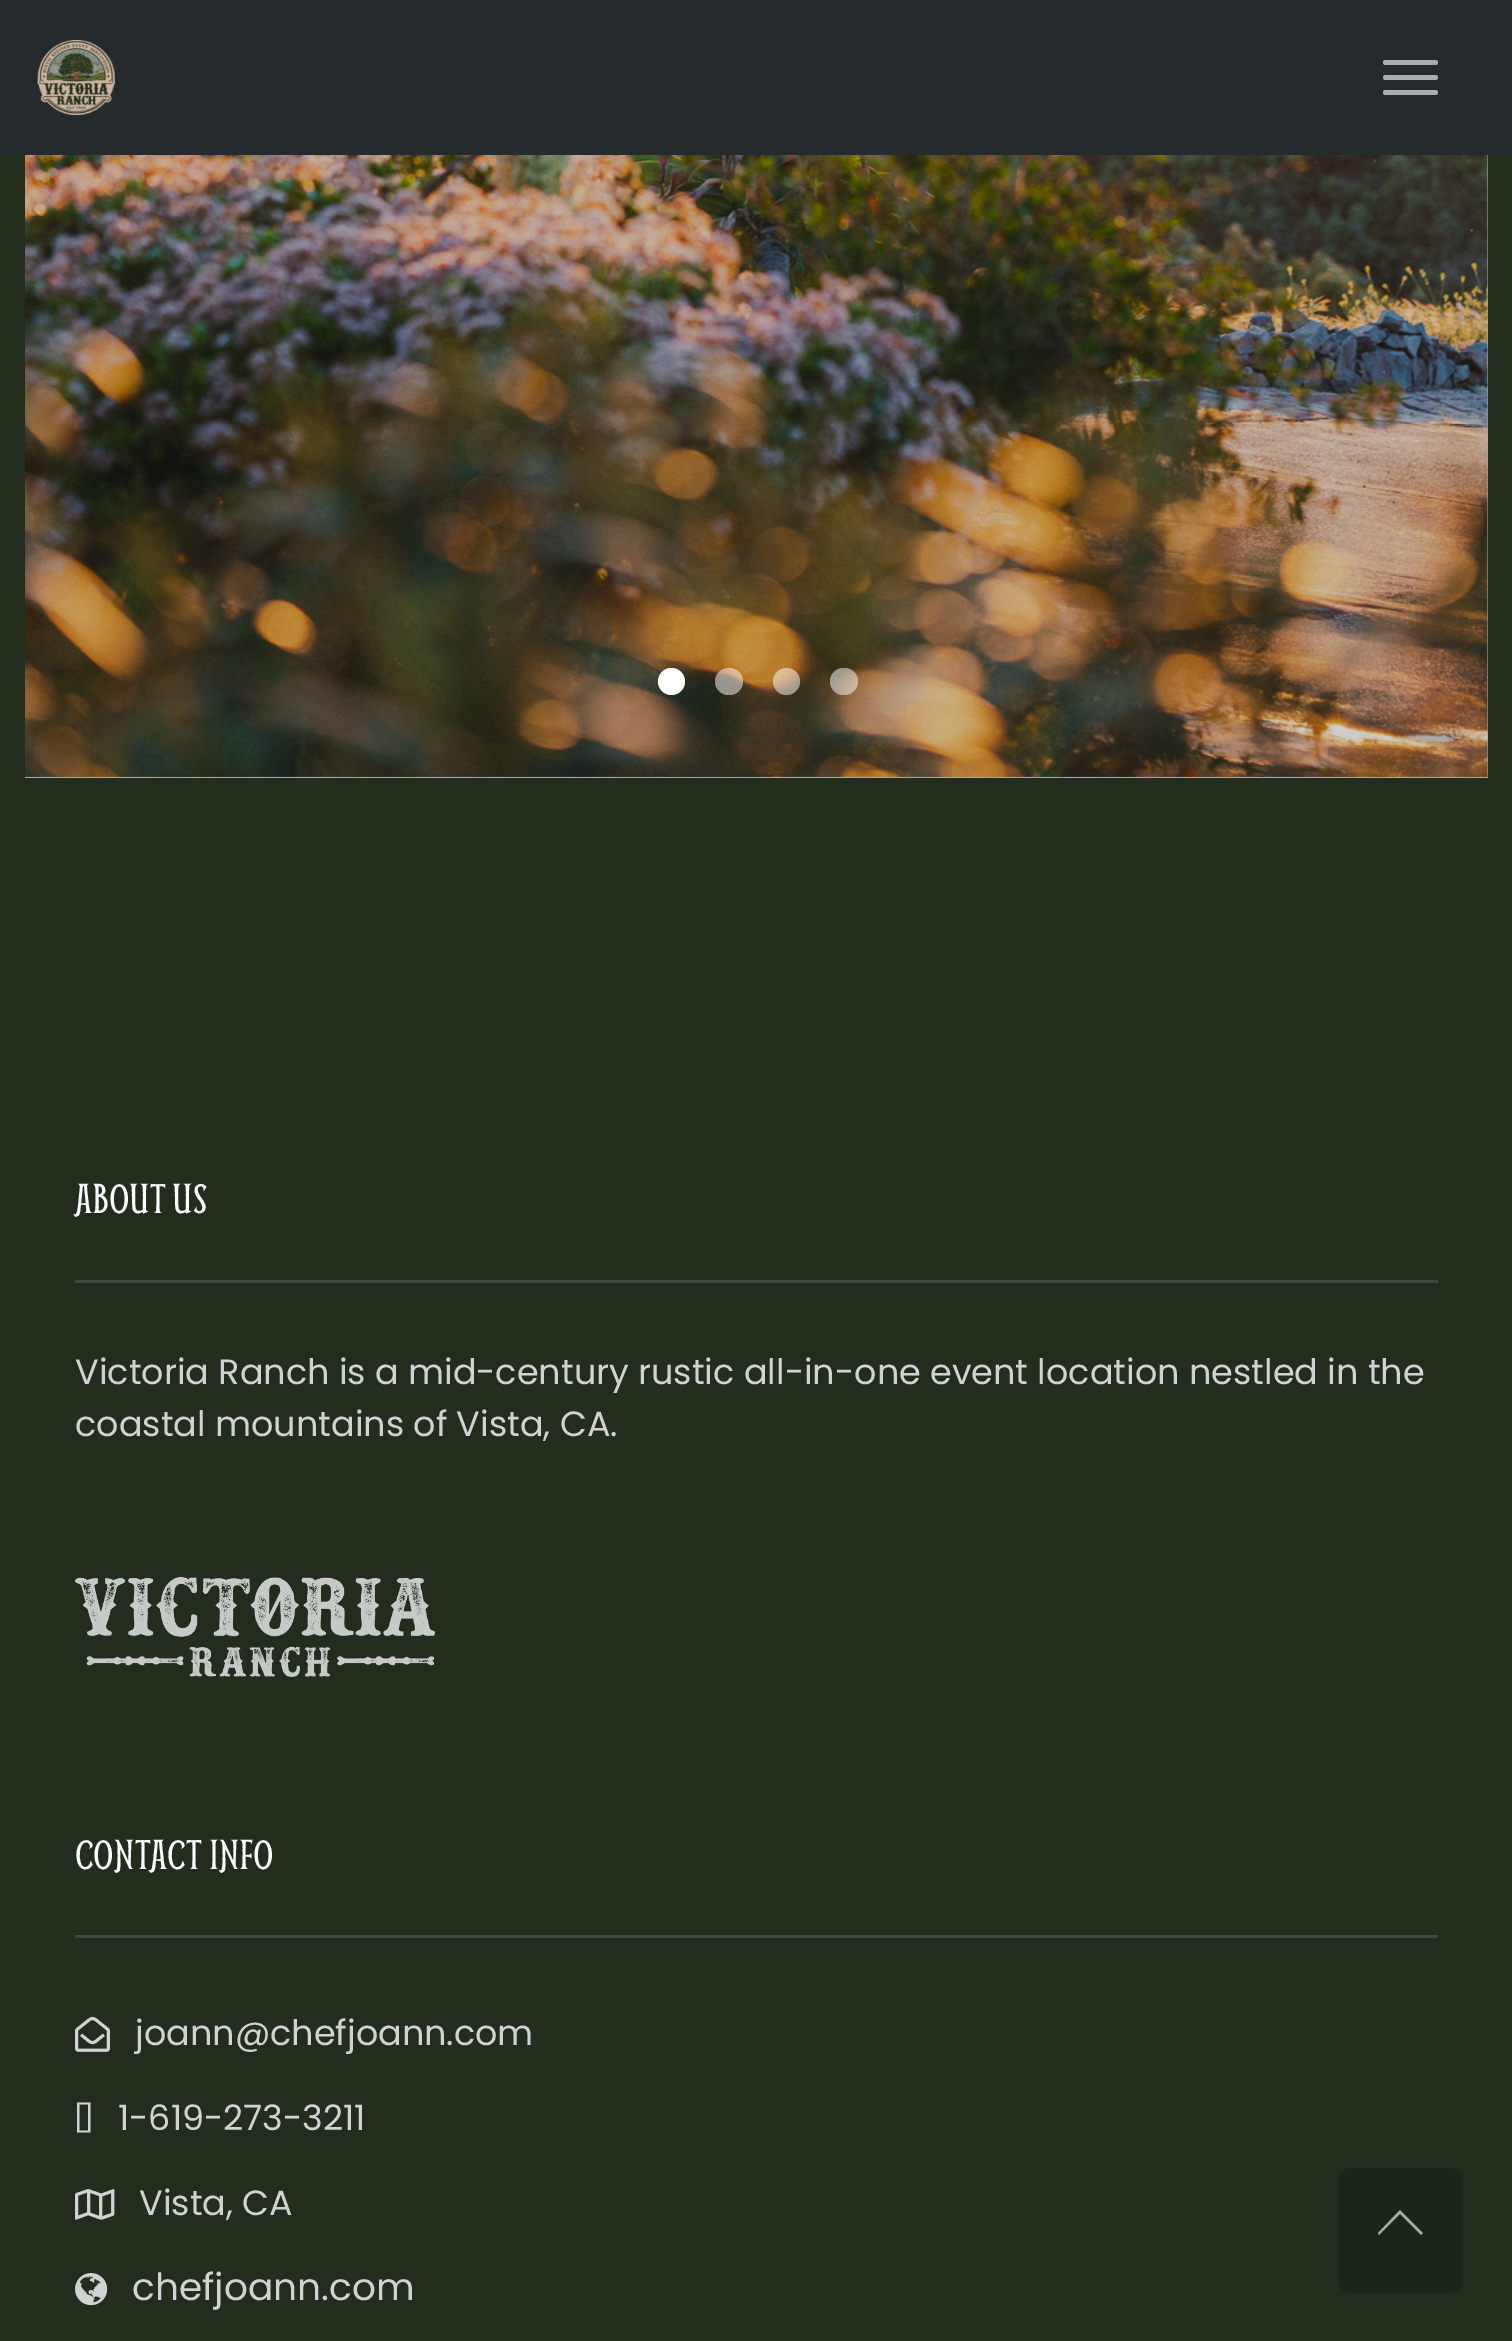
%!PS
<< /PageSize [1512 2341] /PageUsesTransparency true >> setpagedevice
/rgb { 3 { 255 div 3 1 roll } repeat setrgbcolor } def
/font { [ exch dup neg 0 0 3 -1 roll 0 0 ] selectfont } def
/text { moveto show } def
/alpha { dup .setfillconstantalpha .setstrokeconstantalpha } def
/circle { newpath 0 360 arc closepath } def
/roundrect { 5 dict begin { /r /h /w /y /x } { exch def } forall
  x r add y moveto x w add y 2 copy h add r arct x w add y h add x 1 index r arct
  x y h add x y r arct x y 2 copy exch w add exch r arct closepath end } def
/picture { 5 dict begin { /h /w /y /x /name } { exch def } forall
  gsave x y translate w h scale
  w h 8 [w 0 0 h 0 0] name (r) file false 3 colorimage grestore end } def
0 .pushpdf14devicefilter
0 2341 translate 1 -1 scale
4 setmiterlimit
34 45 30 rgb
0 0 1512 2341 rectfill
37 43 45 rgb
0 0 1512 155 rectfill
(img_01.rgb) 37 40 78 75 picture
172 172 172 rgb
1383 60 55 5 2.5 roundrect fill
1383 75 55 5 2.5 roundrect fill
1383 90 55 5 2.5 roundrect fill
165 165 165 rgb
25 155 1463 623 rectfill
(img_02.rgb) 25 155 1463 622 picture
255 255 255 rgb
671.5 681.5 13.5 circle fill
0.5 alpha
715 668 28 27 13.5 roundrect fill
786.5 681.5 13.5 circle fill
830 668 28 27 13.5 roundrect fill
1 alpha
65 72 62 rgb
75 1280 1363 3 rectfill
(img_03.rgb) 75 1577 360 100 picture
75 1935 1363 3 rectfill
(img_04.rgb) 75 2016 35 36 picture
210 210 210 rgb
79.5 2130.5 moveto 8.5 0 rlineto 0 -26 rlineto -8.5 0 rlineto closepath 77 2132.5 moveto 0 -30 rlineto 13.5 0 rlineto 0 30 rlineto closepath fill
(img_05.rgb) 75 2189 40 31 picture
(img_06.rgb) 75 2273 33 33 picture
28 37 25 rgb
1338 2168 125 125 13 roundrect fill
167 171 165 rgb
1379 2235 moveto 21 -21 rlineto 21 21 rlineto 2 -2 rlineto -23 -23 rlineto -22 23 rlineto closepath fill
/Smythe-Regular 45 font
255 255 255 rgb
(ABOUT US) 75 1213 text
/Poppins-Regular 35 font
210 210 210 rgb
(Victoria Ranch is a mid-century rustic all-in-one event location nestled in the) 75 1384 text
(coastal mountains of Vista, CA.) 75 1436 text
/Smythe-Regular 45 font
255 255 255 rgb
(CONTACT INFO) 75 1869 text
/Poppins-Regular 35 font
210 210 210 rgb
(joann@chefjoann.com) 135 2045 text
(1-619-273-3211) 118 2130 text
(Vista, CA) 139 2215 text
/Poppins-Regular 37.5 font
(chefjoann.com) 132 2300 text
.poppdf14devicefilter showpage
